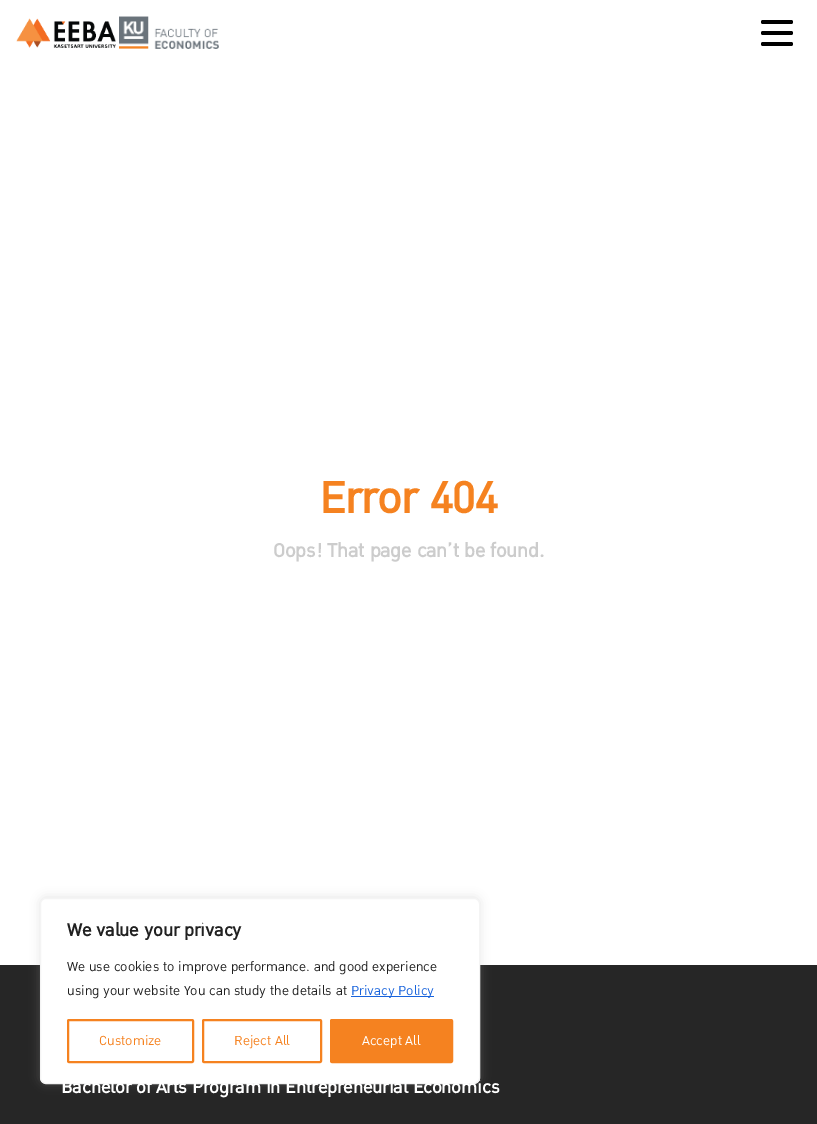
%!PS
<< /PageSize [817 1124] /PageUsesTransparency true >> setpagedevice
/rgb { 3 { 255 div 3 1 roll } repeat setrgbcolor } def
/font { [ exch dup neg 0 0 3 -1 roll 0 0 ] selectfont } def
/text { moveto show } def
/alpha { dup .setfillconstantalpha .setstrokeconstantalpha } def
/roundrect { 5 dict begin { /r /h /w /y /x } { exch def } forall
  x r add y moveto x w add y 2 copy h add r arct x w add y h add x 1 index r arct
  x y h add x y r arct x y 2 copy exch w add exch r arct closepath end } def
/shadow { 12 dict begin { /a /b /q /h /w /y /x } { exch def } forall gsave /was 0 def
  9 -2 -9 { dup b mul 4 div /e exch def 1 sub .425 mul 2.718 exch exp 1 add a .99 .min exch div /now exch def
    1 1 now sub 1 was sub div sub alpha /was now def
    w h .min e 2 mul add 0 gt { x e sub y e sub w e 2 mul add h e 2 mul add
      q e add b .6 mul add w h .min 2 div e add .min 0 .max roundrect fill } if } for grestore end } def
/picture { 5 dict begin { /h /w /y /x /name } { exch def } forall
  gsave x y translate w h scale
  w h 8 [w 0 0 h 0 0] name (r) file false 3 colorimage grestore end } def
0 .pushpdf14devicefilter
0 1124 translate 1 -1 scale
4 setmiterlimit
255 255 255 rgb
0 0 817 1124 rectfill
(img_01.rgb) 16 18 100 30 picture
(img_02.rgb) 119 16 100 33 picture
0 0 0 rgb
761 20 32 4 2 roundrect fill
761 31 32 4 2 roundrect fill
761 42 32 4 2 roundrect fill
38 38 38 rgb
0 965 817 159 rectfill
172 171 171 rgb
40 897 440 186 6 5 0.3 shadow
255 255 255 rgb
40.5 898.5 439 185 5.5 roundrect gsave fill grestore
244 244 244 rgb
stroke
24 99 220 rgb
351 996 83 1 rectfill
245 130 32 rgb
2 setlinewidth
68 1020 125 42 1 roundrect stroke
203 1020 118 42 1 roundrect stroke
331 1020 121 42 1 roundrect gsave fill grestore
stroke
/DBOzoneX-Bold 60 font
(Error 404) 319 513 text
/DBOzoneX-Bold 26 font
204 204 204 rgb
(Oops! That page can’t be found.) 273 557 text
/DBOzoneX-Bold 24 font
255 255 255 rgb
(Bachelor of Arts Program in Entrepreneurial Economics) 61 1093 text
33 33 33 rgb
(We value your privacy) 67 936 text
/DBOzoneX-Regular 18 font
(We use cookies to improve performance. and good experience) 67 971 text
(using your website You can study the details at) 67 995 text
24 99 220 rgb
(Privacy Policy) 351 995 text
245 130 32 rgb
(Customize) 99 1045 text
(Reject All) 234 1045 text
255 255 255 rgb
(Accept All) 362 1045 text
.poppdf14devicefilter showpage
